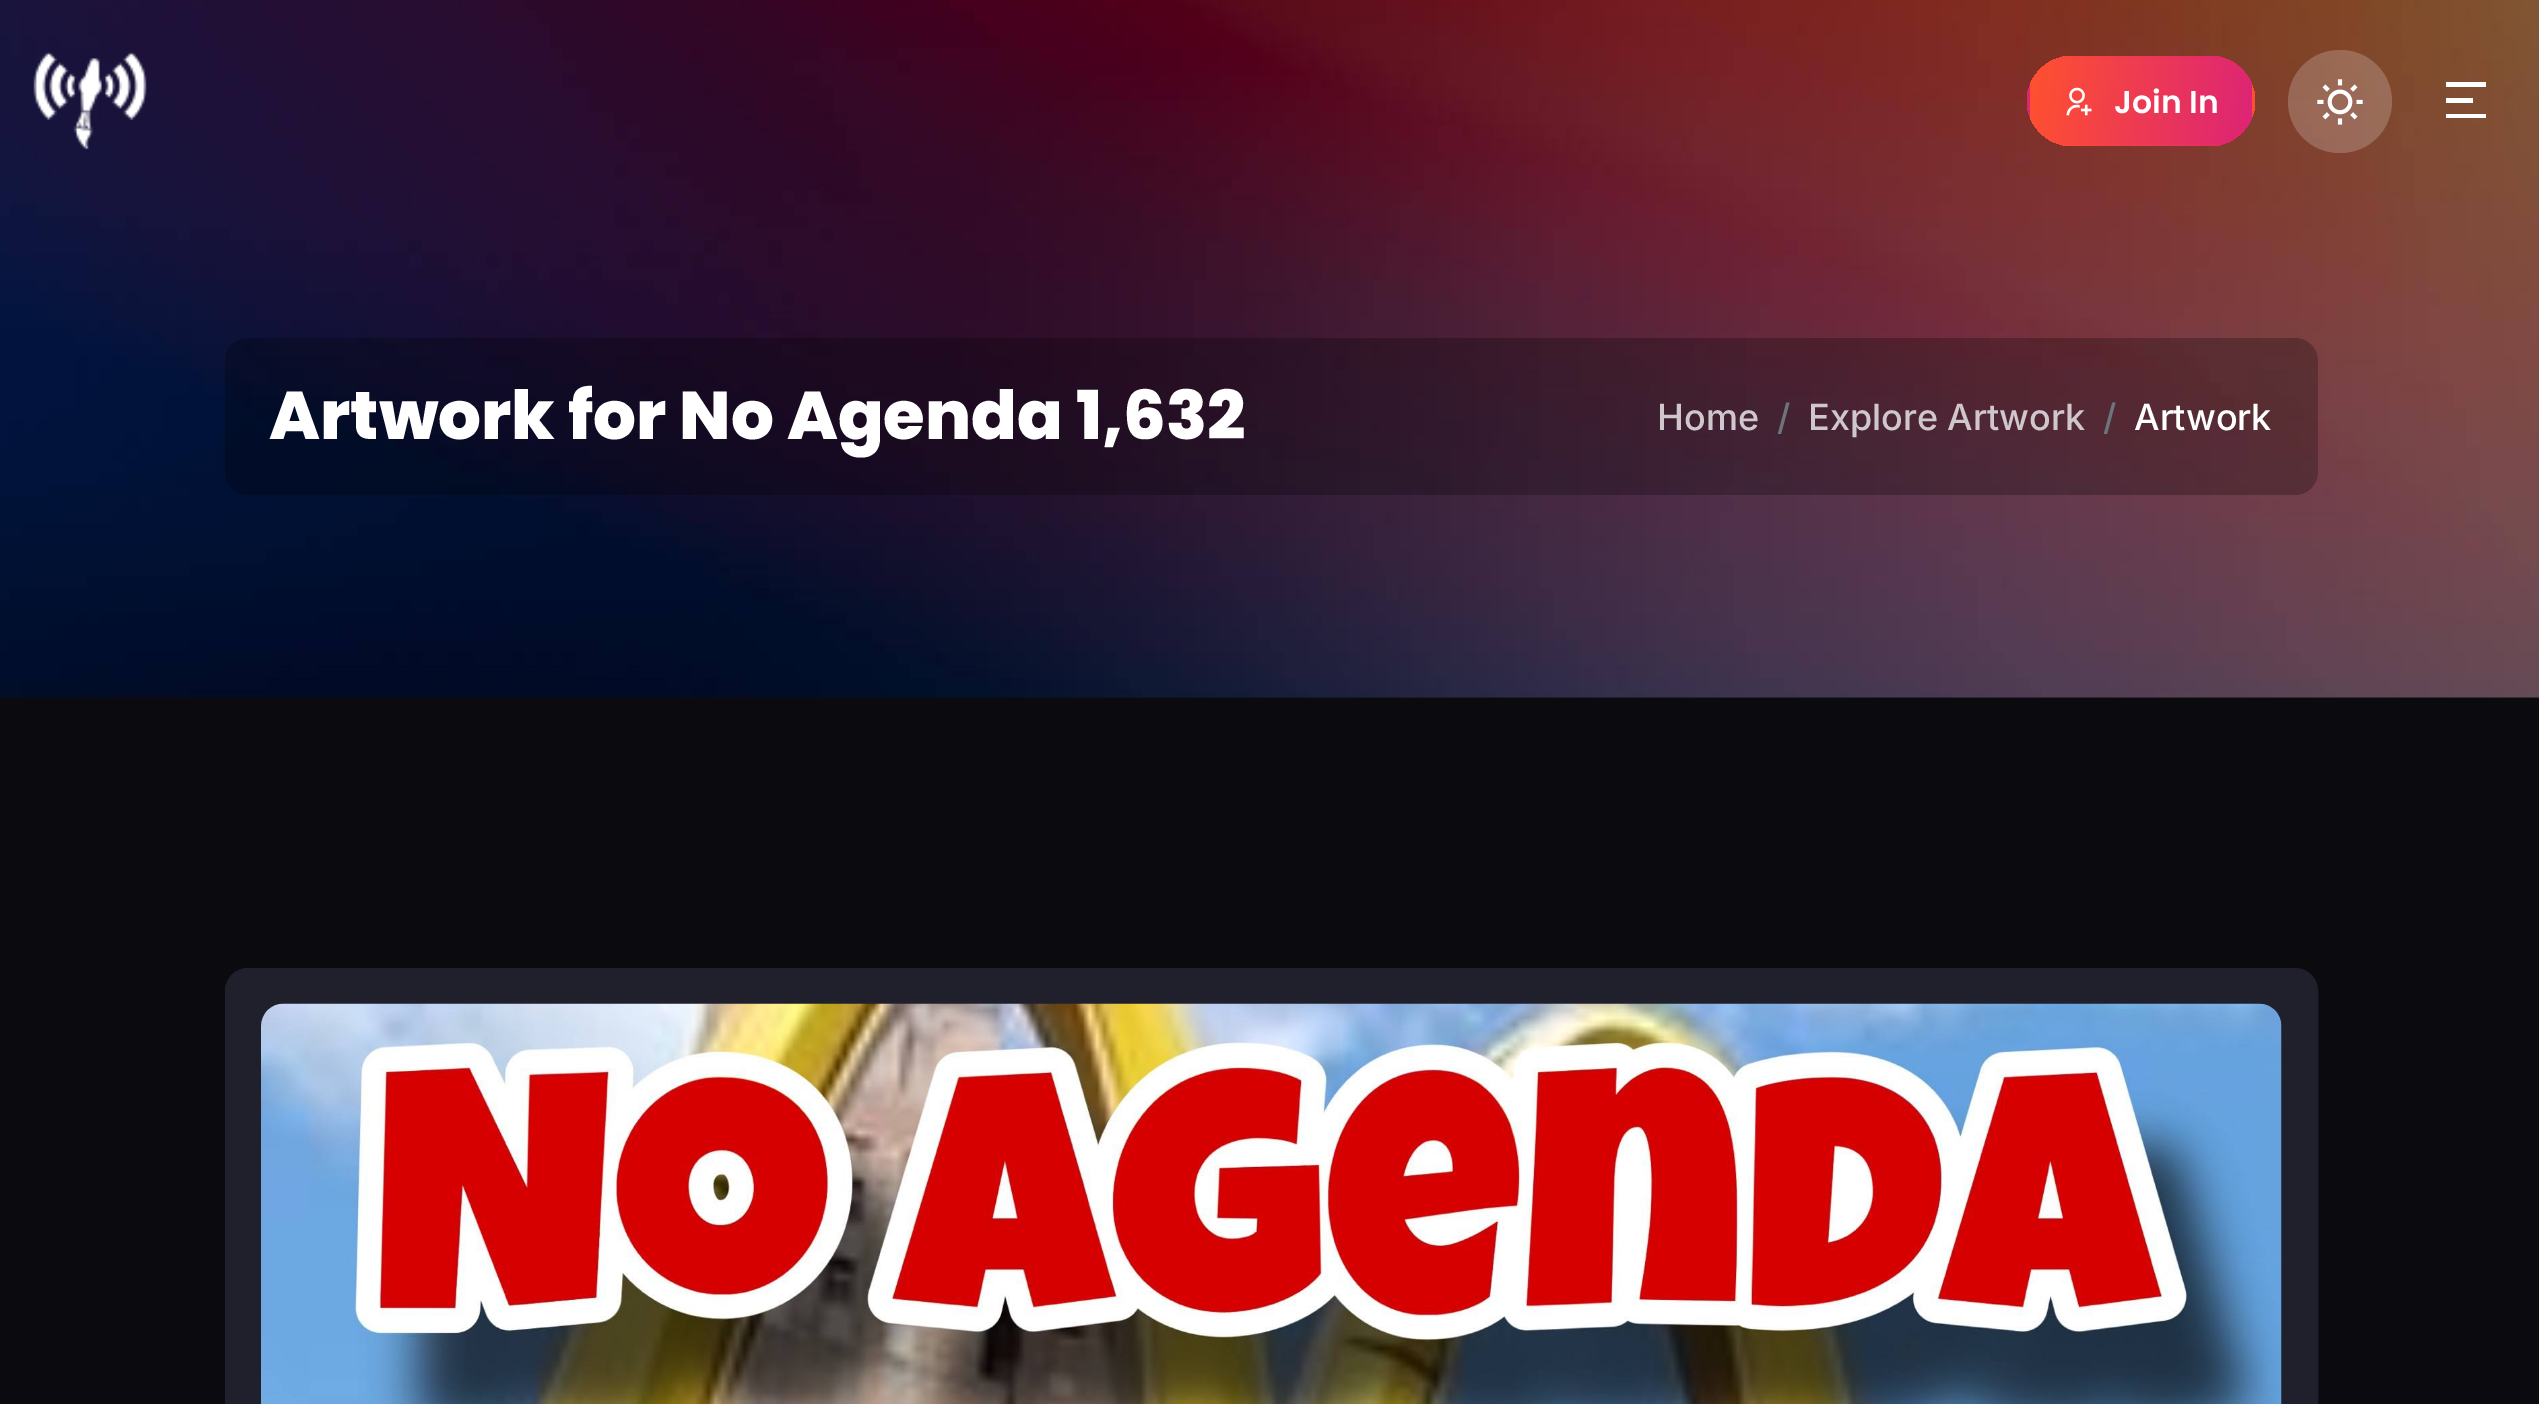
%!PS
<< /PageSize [2539 1404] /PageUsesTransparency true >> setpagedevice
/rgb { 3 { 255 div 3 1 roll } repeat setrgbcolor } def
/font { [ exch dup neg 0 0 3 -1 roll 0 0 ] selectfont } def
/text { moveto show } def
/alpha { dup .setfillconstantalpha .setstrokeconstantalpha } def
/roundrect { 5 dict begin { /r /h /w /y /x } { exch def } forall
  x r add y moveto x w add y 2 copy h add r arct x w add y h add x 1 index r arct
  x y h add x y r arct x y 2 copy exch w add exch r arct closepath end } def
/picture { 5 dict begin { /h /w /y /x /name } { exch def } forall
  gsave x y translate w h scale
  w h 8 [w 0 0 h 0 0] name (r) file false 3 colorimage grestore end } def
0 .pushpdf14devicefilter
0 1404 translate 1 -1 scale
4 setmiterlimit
16 16 16 rgb
0 0 2539 1404 rectfill
(img_04.rgb) 0 0 2539 698 picture
(img_01.rgb) 33 51 114 99 picture
gsave
2027 56 228 90 45 roundrect clip newpath
gsave 2056 56 moveto 170 0 rlineto 0 3 rlineto -170 0 rlineto closepath clip newpath
<< /ShadingType 2 /ColorSpace /DeviceRGB /Coords [2026 1 2256 30] /Extend [true true] /Function << /FunctionType 2 /Domain [0 1] /C0 [1 0.318 0.184] /C1 [0.867 0.141 0.463] /N 1 >> >> shfill grestore
gsave 2027 85 moveto 3 0 rlineto 0 32 rlineto -3 0 rlineto closepath clip newpath
<< /ShadingType 2 /ColorSpace /DeviceRGB /Coords [1803 87 2033 116] /Extend [true true] /Function << /FunctionType 2 /Domain [0 1] /C0 [1 0.318 0.184] /C1 [0.867 0.141 0.463] /N 1 >> >> shfill grestore
gsave 2030 59 moveto 222 0 rlineto 0 85 rlineto -222 0 rlineto closepath clip newpath
<< /ShadingType 2 /ColorSpace /DeviceRGB /Coords [2026 87 2256 116] /Extend [true true] /Function << /FunctionType 2 /Domain [0 1] /C0 [1 0.318 0.184] /C1 [0.867 0.141 0.463] /N 1 >> >> shfill grestore
gsave 2252 85 moveto 3 0 rlineto 0 32 rlineto -3 0 rlineto closepath clip newpath
<< /ShadingType 2 /ColorSpace /DeviceRGB /Coords [2249 87 2479 116] /Extend [true true] /Function << /FunctionType 2 /Domain [0 1] /C0 [1 0.318 0.184] /C1 [0.867 0.141 0.463] /N 1 >> >> shfill grestore
gsave 2059 144 moveto 164 0 rlineto 0 2 rlineto -164 0 rlineto closepath clip newpath
<< /ShadingType 2 /ColorSpace /DeviceRGB /Coords [2026 172 2256 201] /Extend [true true] /Function << /FunctionType 2 /Domain [0 1] /C0 [1 0.318 0.184] /C1 [0.867 0.141 0.463] /N 1 >> >> shfill grestore
grestore
(img_02.rgb) 2066 87 26 29 picture
0.2 alpha
255 255 255 rgb
2288 50 104 103 51.5 roundrect fill
1 alpha
(img_03.rgb) 2317 79 46 46 picture
2446 82 moveto 40 0 rlineto 0 5 rlineto -40 0 rlineto closepath 2446 98 moveto 27 0 rlineto 0 5 rlineto -27 0 rlineto closepath 2446 114 moveto 40 0 rlineto 0 4 rlineto -40 0 rlineto closepath fill
0.25 alpha
0 0 0 rgb
225 338 2093 157 23 roundrect fill
1 alpha
11 11 15 rgb
0 698 2539 706 rectfill
32 32 45 rgb
226 969 2091 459 22 roundrect gsave fill grestore
2 setlinewidth
stroke
(img_05.rgb) 261 1003 2021 401 picture
/Poppins-SemiBold 31.5 font
255 255 255 rgb
(Join In) 2114 113 text
/Poppins-ExtraBold 67.5 font
(Artwork for No Agenda 1,632) 269 439 text
/Inter-Medium 36 font
207 199 204 rgb
(Home) 1657 430 text
108 117 125 rgb
(/) 1777 430 text
207 199 204 rgb
(Explore Artwork) 1808 430 text
108 117 125 rgb
(/) 2103 430 text
255 255 255 rgb
(Artwork) 2134 430 text
.poppdf14devicefilter showpage
